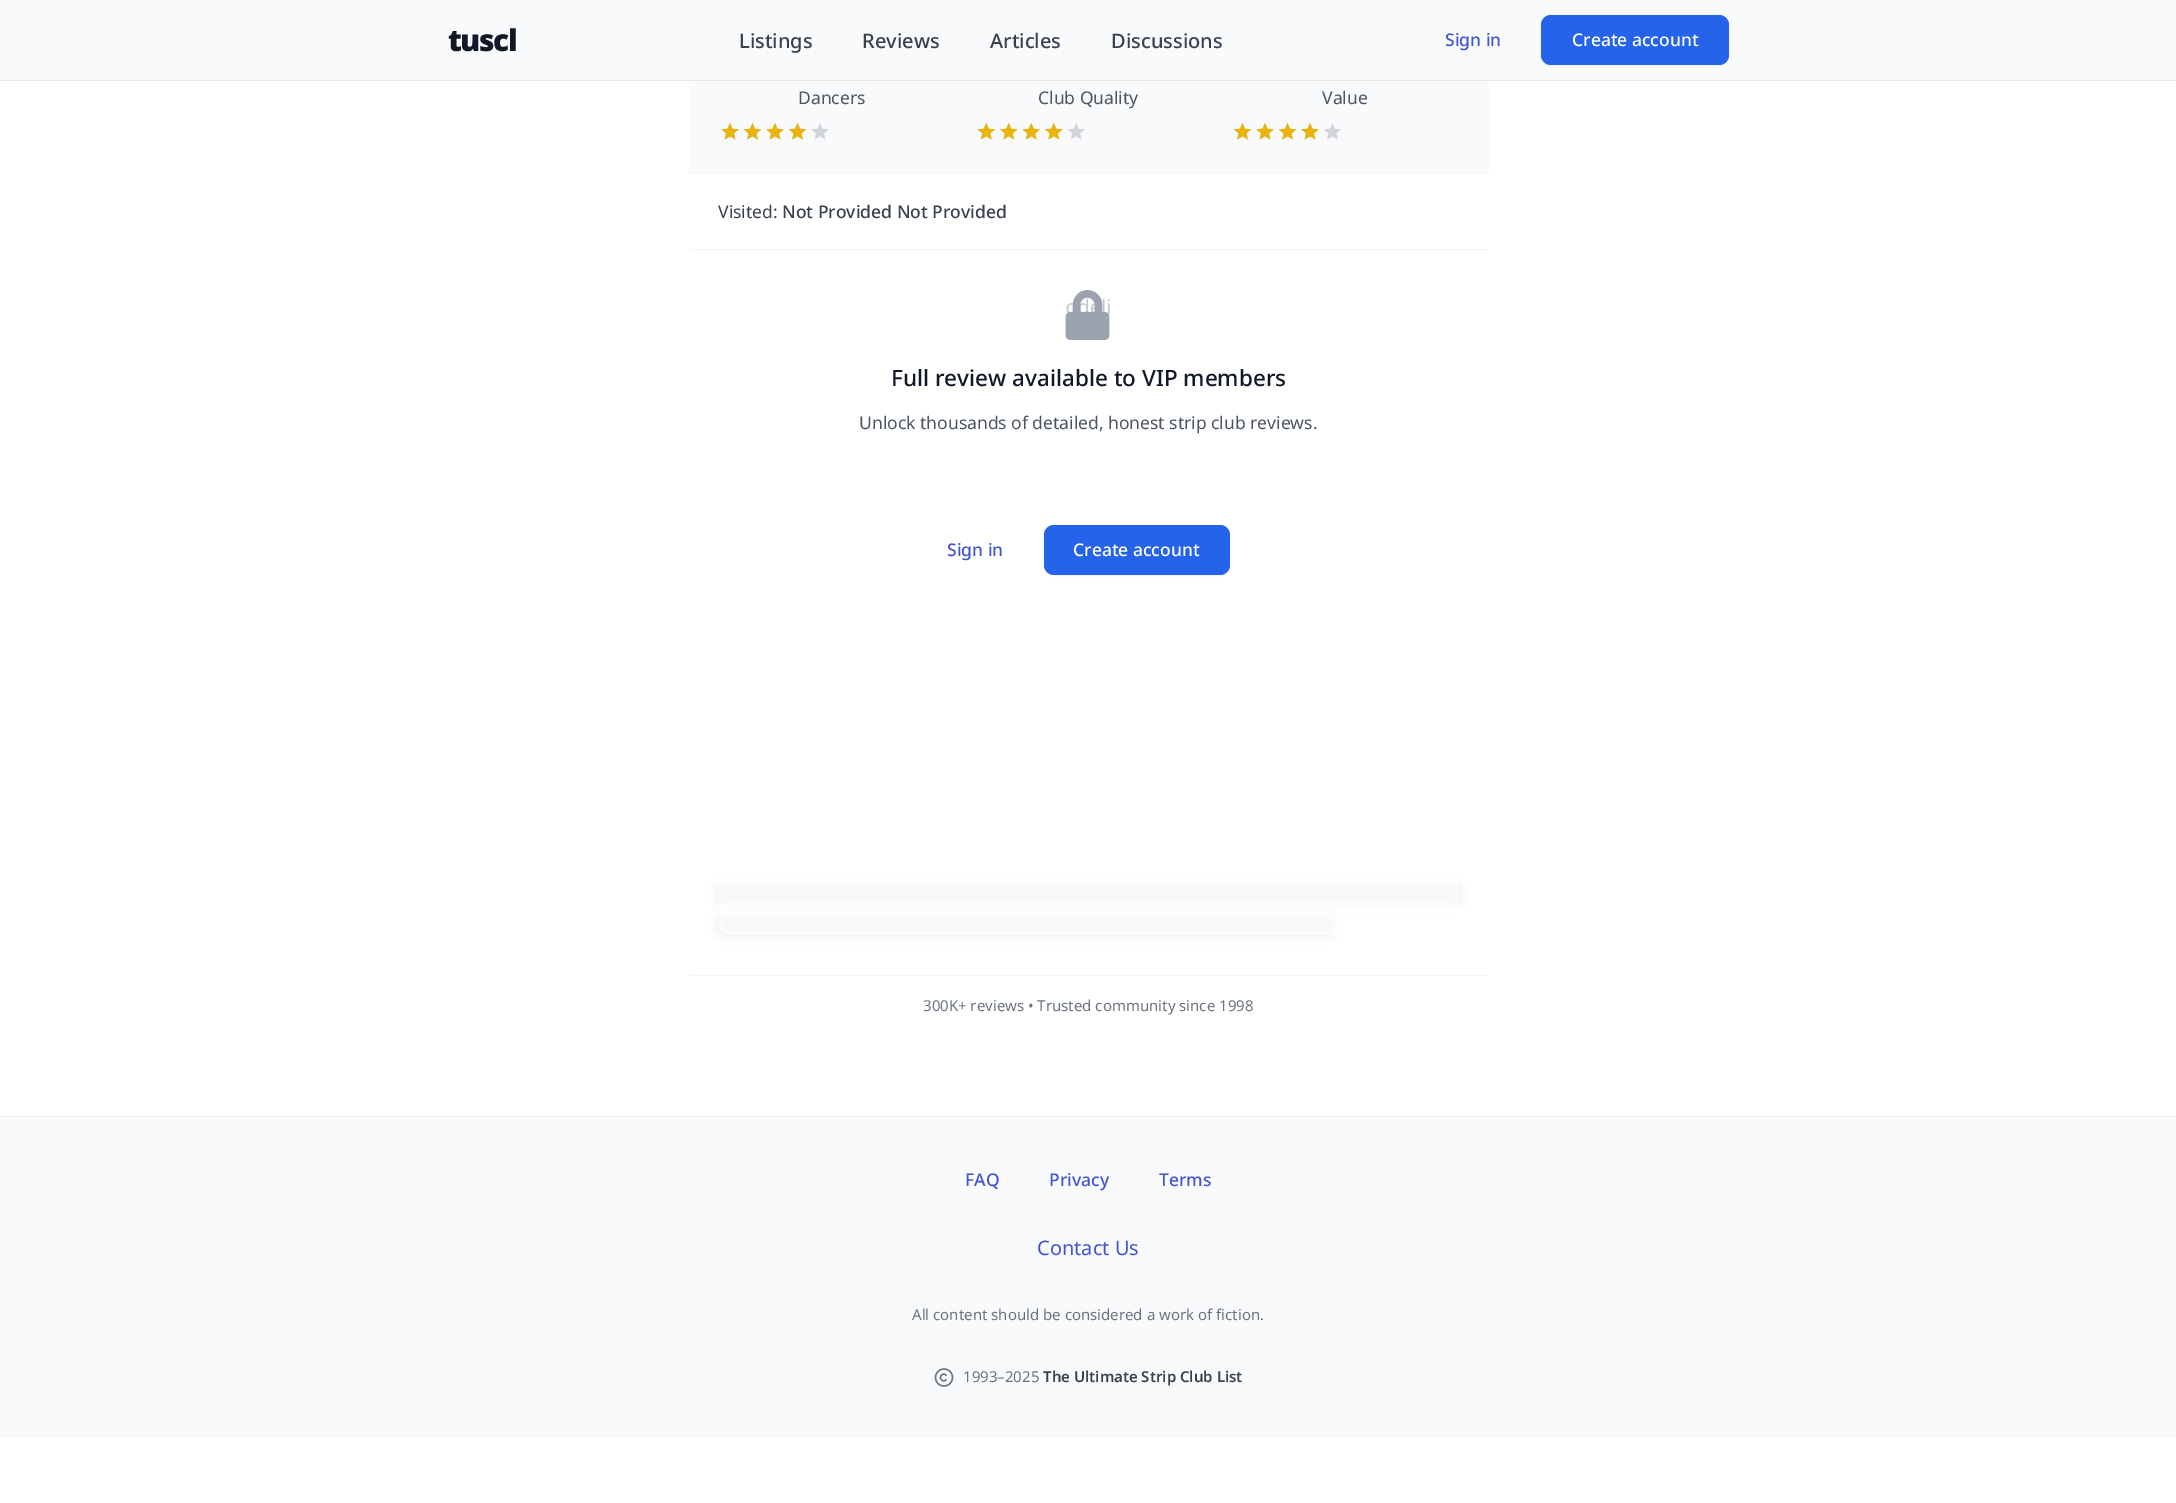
%!PS
<< /PageSize [2176 1503] /PageUsesTransparency true >> setpagedevice
/rgb { 3 { 255 div 3 1 roll } repeat setrgbcolor } def
/font { [ exch dup neg 0 0 3 -1 roll 0 0 ] selectfont } def
/text { moveto show } def
/alpha { dup .setfillconstantalpha .setstrokeconstantalpha } def
/roundrect { 5 dict begin { /r /h /w /y /x } { exch def } forall
  x r add y moveto x w add y 2 copy h add r arct x w add y h add x 1 index r arct
  x y h add x y r arct x y 2 copy exch w add exch r arct closepath end } def
/shadow { 12 dict begin { /a /b /q /h /w /y /x } { exch def } forall gsave /was 0 def
  9 -2 -9 { dup b mul 4 div /e exch def 1 sub .425 mul 2.718 exch exp 1 add a .99 .min exch div /now exch def
    1 1 now sub 1 was sub div sub alpha /was now def
    w h .min e 2 mul add 0 gt { x e sub y e sub w e 2 mul add h e 2 mul add
      q e add b .6 mul add w h .min 2 div e add .min 0 .max roundrect fill } if } for grestore end } def
/picture { 5 dict begin { /h /w /y /x /name } { exch def } forall
  gsave x y translate w h scale
  w h 8 [w 0 0 h 0 0] name (r) file false 3 colorimage grestore end } def
0 .pushpdf14devicefilter
0 1503 translate 1 -1 scale
4 setmiterlimit
255 255 255 rgb
0 0 2176 1503 rectfill
249 250 251 rgb
0 0 2176 80 rectfill
229 231 235 rgb
0 80 2176 1 rectfill
0 0 0 rgb
1541 16 188 50 10 1 0.05 shadow
37 99 235 rgb
1541 15 188 50 10 roundrect fill
249 250 251 rgb
689 81 800 92 rectfill
243 244 246 rgb
689 173 800 1 rectfill
(img_01.rgb) 721 123 18 17 picture
(img_02.rgb) 744 123 17 17 picture
(img_01.rgb) 766 123 18 17 picture
(img_02.rgb) 789 123 17 17 picture
(img_01.rgb) 811 123 18 17 picture
(img_03.rgb) 721 123 18 17 picture
(img_04.rgb) 743 123 19 17 picture
(img_03.rgb) 766 123 18 17 picture
(img_04.rgb) 788 123 19 17 picture
(img_05.rgb) 977 123 18 17 picture
(img_06.rgb) 1000 123 18 17 picture
(img_05.rgb) 1022 123 18 17 picture
(img_06.rgb) 1045 123 18 17 picture
(img_05.rgb) 1067 123 18 17 picture
(img_07.rgb) 977 123 18 17 picture
(img_08.rgb) 1000 123 18 17 picture
(img_07.rgb) 1022 123 18 17 picture
(img_08.rgb) 1045 123 18 17 picture
(img_02.rgb) 1234 123 17 17 picture
(img_04.rgb) 1233 123 19 17 picture
(img_01.rgb) 1256 123 18 17 picture
(img_03.rgb) 1256 123 18 17 picture
(img_02.rgb) 1279 123 17 17 picture
(img_04.rgb) 1278 123 19 17 picture
(img_01.rgb) 1301 123 18 17 picture
(img_03.rgb) 1301 123 18 17 picture
(img_02.rgb) 1324 123 17 17 picture
689 249 800 1 rectfill
229 231 235 rgb
719 885 740 20 5 5 1 shadow
719 915 616 20 5 5 1 shadow
0.7 alpha
255 255 255 rgb
719 290 740 645 10 roundrect fill
1 alpha
(img_09.rgb) 1065 290 45 50 picture
0 0 0 rgb
1044 526 186 50 10 1 0.05 shadow
37 99 235 rgb
1044 525 186 50 10 roundrect fill
243 244 246 rgb
689 975 800 1 rectfill
249 250 251 rgb
0 1118 2176 320 rectfill
229 231 235 rgb
0 1116 2176 1 rectfill
(img_10.rgb) 934 1368 20 19 picture
/NotoSans-Black 30 font
17 24 39 rgb
448 51 moveto -1.5 0 (tuscl) ashow
/NotoSans-Medium 20 font
55 65 81 rgb
(Listings) 739 48 text
(Reviews) 862 48 text
(Articles) 990 48 text
(Discussions) 1111 48 text
/NotoSans-Medium 17.5 font
66 84 214 rgb
(Sign in) 1445 46 text
255 255 255 rgb
(Create account) 1572 46 text
/NotoSans-Regular 17.5 font
75 85 99 rgb
(Dancers) 798 104 text
(Club Quality) 1038 104 text
(Value) 1322 104 text
55 65 81 rgb
(Visited:) 718 218 text
/NotoSans-Medium 17.5 font
(Not Provided Not Provided) 782 218 text
/NotoSans-Medium 22.5 font
17 24 39 rgb
(Full review available to VIP members) 891 386 text
/NotoSans-Regular 17.5 font
75 85 99 rgb
(Unlock thousands of detailed, honest strip club reviews.) 859 429 text
/NotoSans-Medium 17.5 font
66 84 214 rgb
(Sign in) 947 556 text
255 255 255 rgb
(Create account) 1073 556 text
/NotoSans-Regular 15 font
107 114 128 rgb
(300K+ reviews • Trusted community since 1998) 923 1011 text
/NotoSans-Medium 17.5 font
66 84 214 rgb
(FAQ) 965 1186 text
(Privacy) 1049 1186 text
(Terms) 1159 1186 text
/NotoSans-Regular 20 font
(Contact Us) 1037 1255 text
/NotoSans-Regular 15 font
107 114 128 rgb
(All content should be considered a work of fiction.) 912 1320 text
(1993–2025) 963 1382 text
/NotoSans-SemiBold 15 font
55 65 81 rgb
(The Ultimate Strip Club List) 1043 1382 text
.poppdf14devicefilter showpage
